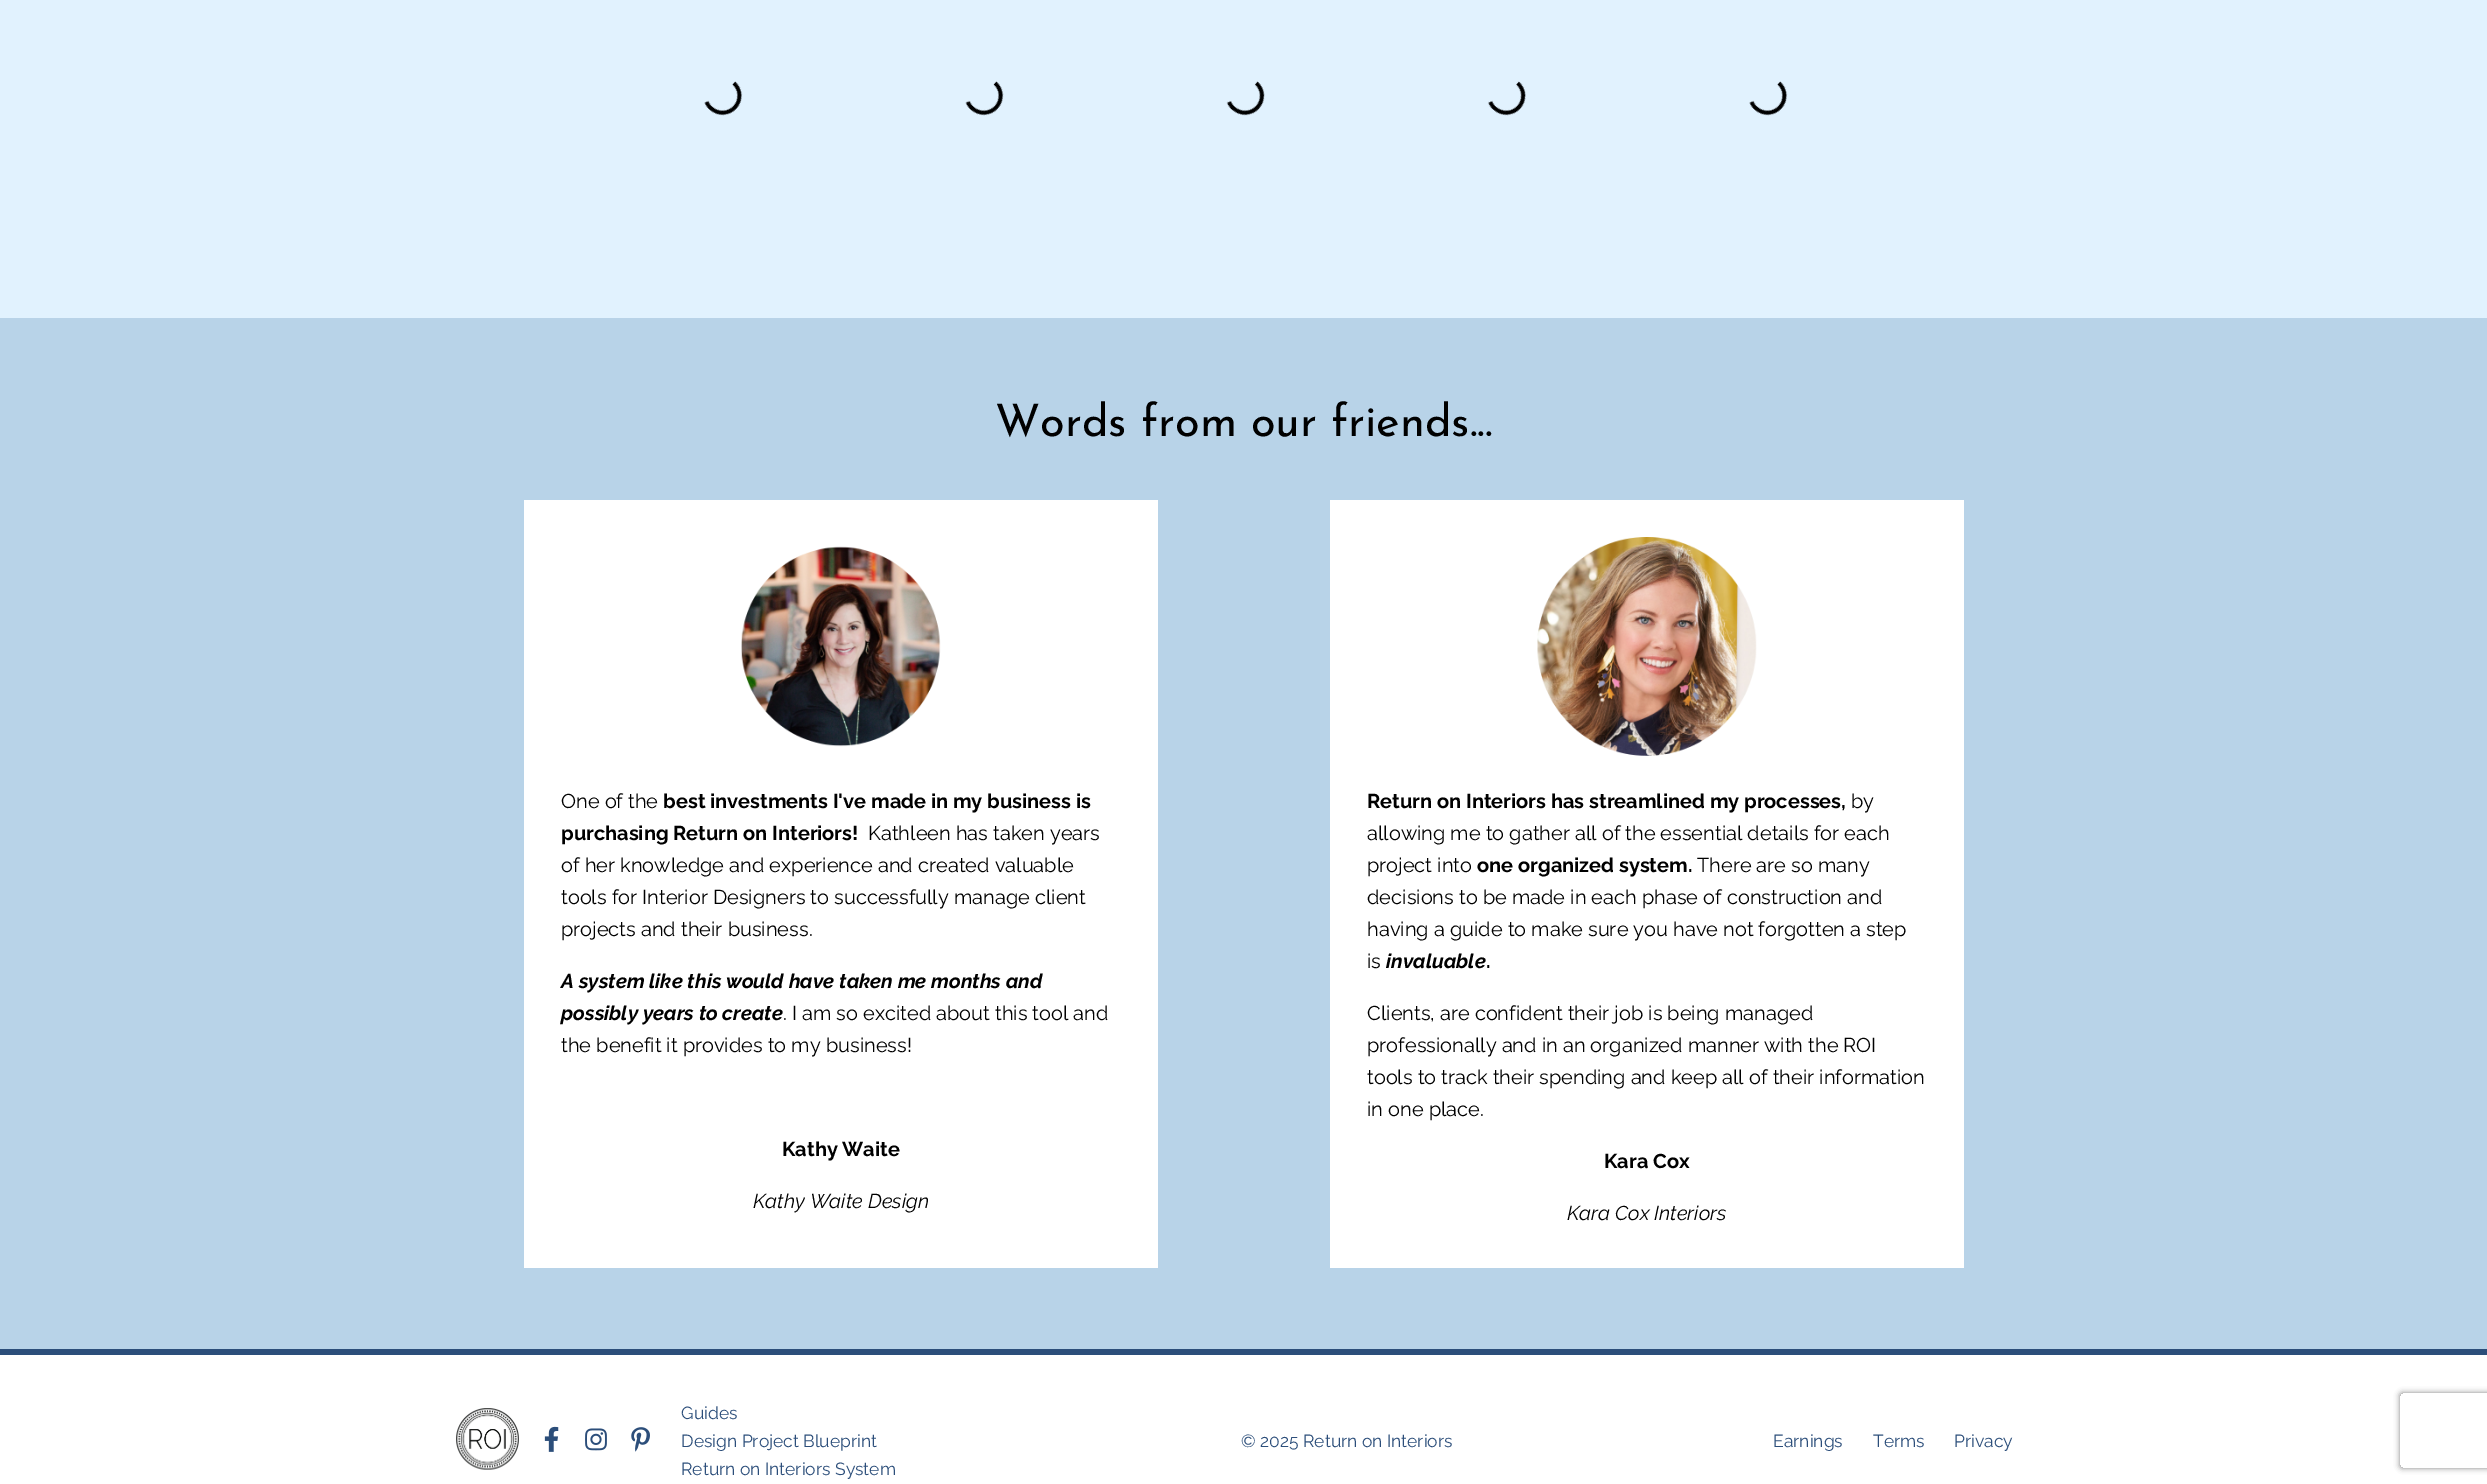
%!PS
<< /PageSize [2487 1484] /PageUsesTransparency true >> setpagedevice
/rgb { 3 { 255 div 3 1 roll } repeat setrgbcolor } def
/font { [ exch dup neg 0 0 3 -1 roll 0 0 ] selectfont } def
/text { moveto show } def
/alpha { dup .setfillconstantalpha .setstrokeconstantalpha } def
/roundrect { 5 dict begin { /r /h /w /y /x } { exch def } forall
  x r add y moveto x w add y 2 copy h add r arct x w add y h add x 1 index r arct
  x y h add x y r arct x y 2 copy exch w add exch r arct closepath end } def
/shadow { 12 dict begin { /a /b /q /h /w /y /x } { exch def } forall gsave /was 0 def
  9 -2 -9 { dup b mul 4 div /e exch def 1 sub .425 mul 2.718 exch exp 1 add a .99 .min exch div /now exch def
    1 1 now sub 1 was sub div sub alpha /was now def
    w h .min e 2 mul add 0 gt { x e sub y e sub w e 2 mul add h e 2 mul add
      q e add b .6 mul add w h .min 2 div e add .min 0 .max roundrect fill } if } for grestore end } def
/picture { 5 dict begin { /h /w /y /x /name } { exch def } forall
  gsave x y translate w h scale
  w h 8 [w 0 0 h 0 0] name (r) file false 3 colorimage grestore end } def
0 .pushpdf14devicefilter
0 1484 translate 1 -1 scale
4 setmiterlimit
255 255 255 rgb
0 0 2487 1484 rectfill
225 242 254 rgb
0 0 2487 318 rectfill
(img_01.rgb) 704 81 1084 35 picture
184 211 232 rgb
0 318 2487 1031 rectfill
255 255 255 rgb
524 500 634 768 rectfill
(img_02.rgb) 741 546 200 201 picture
1330 500 634 768 rectfill
(img_03.rgb) 1537 537 220 219 picture
44 78 122 rgb
0 1349 2487 6 rectfill
gsave
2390 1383 moveto 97 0 rlineto 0 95 rlineto -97 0 rlineto closepath 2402.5 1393 moveto 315 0 rlineto 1.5 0 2.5 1 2.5 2.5 rcurveto 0 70 rlineto 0 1.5 -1 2.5 -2.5 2.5 rcurveto -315 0 rlineto -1.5 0 -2.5 -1 -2.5 -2.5 rcurveto 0 -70 rlineto 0 -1.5 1 -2.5 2.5 -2.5 rcurveto closepath eoclip newpath
128 128 128 rgb
2400 1393 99 75 2.5 3 1 shadow
grestore
(img_04.rgb) 456 1408 63 62 picture
(img_05.rgb) 544 1426 15 26 picture
(img_06.rgb) 585 1428 22 23 picture
(img_07.rgb) 631 1427 19 25 picture
/JosefinSans-Regular 45 font
0 0 0 rgb
(Words from our friends...) 995 436 text
/Raleway-Regular 20 font
(One of the) 561 808 text
/Raleway-Bold 20 font
(best investments I've made in my business is) 663 808 text
(purchasing Return on Interiors!) 561 840 text
/Raleway-Regular 20 font
(Kathleen has taken years) 868 840 text
(of her knowledge and experience and created valuable) 561 872 text
(tools for Interior Designers to successfully manage client) 561 904 text
(projects and their business.) 561 936 text
/Raleway-BoldItalic 20 font
(A system like this would have taken me months and) 561 988 text
(possibly years to create) 561 1020 text
/Raleway-Regular 20 font
(. I am so excited about this tool and) 783 1020 text
(the benefit it provides to my business!) 561 1052 text
/Raleway-Bold 20 font
(Kathy Waite) 782 1156 text
/Raleway-Italic 20 font
(Kathy Waite Design) 753 1208 text
/Raleway-Bold 20 font
(Return on Interiors has streamlined my processes,) 1367 808 text
/Raleway-Regular 20 font
(by) 1851 808 text
(allowing me to gather all of the essential details for each) 1367 840 text
(project into) 1367 872 text
/Raleway-Bold 20 font
(one organized system.) 1477 872 text
/Raleway-Regular 20 font
(There are so many) 1697 872 text
(decisions to be made in each phase of construction and) 1367 904 text
(having a guide to make sure you have not forgotten a step) 1367 936 text
(is) 1367 968 text
/Raleway-BoldItalic 20 font
(invaluable) 1386 968 text
/Raleway-Bold 20 font
(.) 1486 968 text
/Raleway-Regular 20 font
(Clients, are confident their job is being managed) 1367 1020 text
(professionally and in an organized manner with the ROI) 1367 1052 text
(tools to track their spending and keep all of their information) 1367 1084 text
(in one place.) 1367 1116 text
/Raleway-Bold 20 font
(Kara Cox) 1604 1168 text
/Raleway-Italic 20 font
(Kara Cox Interiors) 1567 1220 text
/Raleway-Regular 17.5 font
44 78 122 rgb
(Guides) 681 1419 text
(Design Project Blueprint) 681 1447 text
(Return on Interiors System) 681 1475 text
(© 2025 Return on Interiors) 1241 1447 text
(Earnings) 1773 1447 text
(Terms) 1873 1447 text
(Privacy) 1954 1447 text
.poppdf14devicefilter showpage
